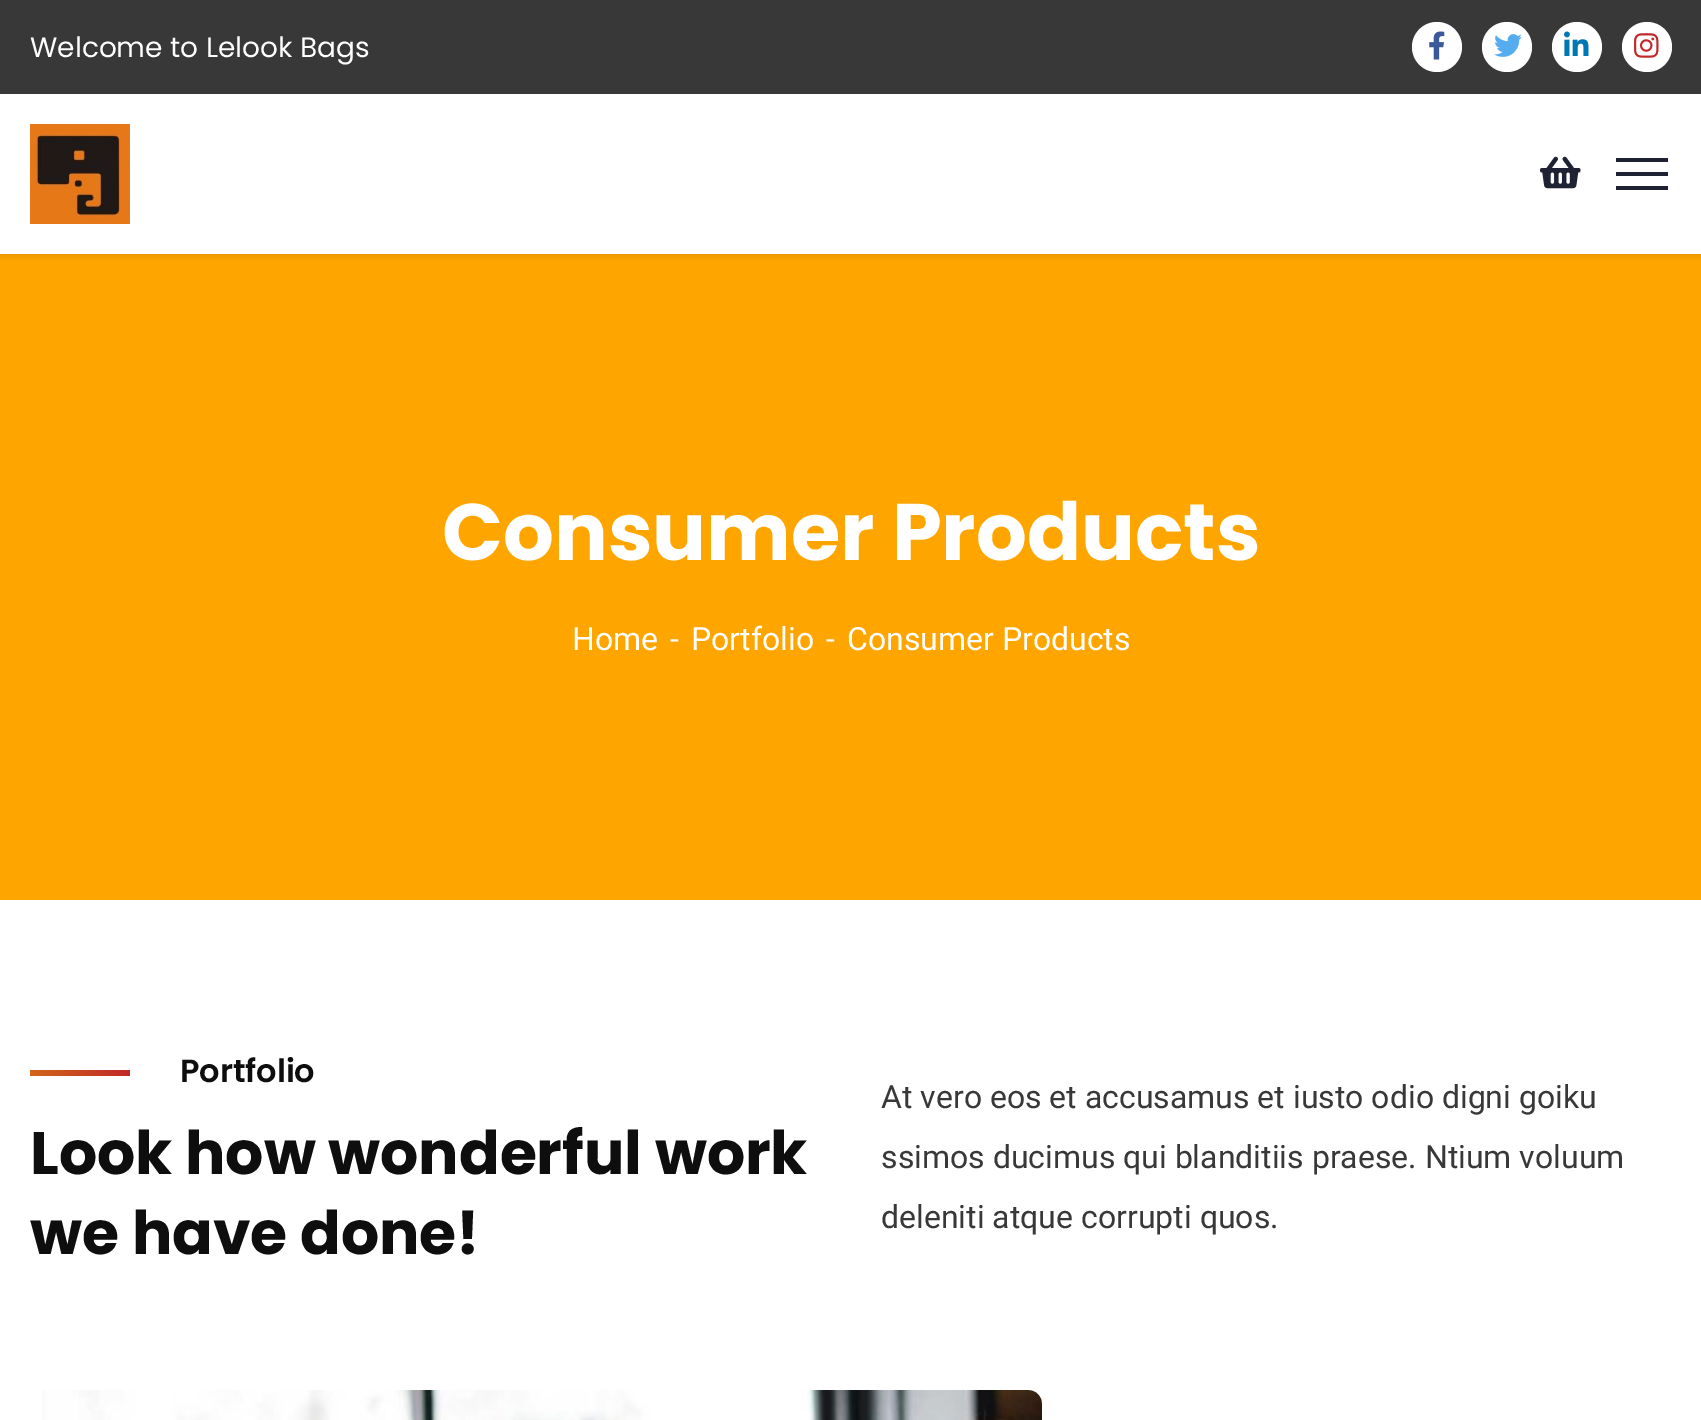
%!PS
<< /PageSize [1701 1420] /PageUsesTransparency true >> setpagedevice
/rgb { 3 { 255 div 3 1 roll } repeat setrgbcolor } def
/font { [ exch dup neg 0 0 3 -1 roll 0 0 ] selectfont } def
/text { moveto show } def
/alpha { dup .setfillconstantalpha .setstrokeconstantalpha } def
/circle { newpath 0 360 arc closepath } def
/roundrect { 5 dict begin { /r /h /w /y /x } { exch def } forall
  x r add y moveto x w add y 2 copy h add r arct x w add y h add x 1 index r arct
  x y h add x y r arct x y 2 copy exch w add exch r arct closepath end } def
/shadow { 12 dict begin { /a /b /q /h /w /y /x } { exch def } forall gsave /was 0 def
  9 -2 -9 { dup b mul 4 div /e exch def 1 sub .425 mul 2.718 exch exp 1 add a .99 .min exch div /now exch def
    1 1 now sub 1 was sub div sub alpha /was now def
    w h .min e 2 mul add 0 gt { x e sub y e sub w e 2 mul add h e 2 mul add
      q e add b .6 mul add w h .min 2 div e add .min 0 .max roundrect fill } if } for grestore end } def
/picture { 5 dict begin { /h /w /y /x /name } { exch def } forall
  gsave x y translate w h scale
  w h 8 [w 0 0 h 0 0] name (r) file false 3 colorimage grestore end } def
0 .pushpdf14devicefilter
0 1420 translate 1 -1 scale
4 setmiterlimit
255 255 255 rgb
0 0 1701 1420 rectfill
255 165 0 rgb
0 254 1701 646 rectfill
gsave
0 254 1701 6 rectclip
0 0 0 rgb
0 0 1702 254 0 5 0.15 shadow
grestore
56 56 56 rgb
0 0 1701 94 rectfill
255 255 255 rgb
1437 47 25 circle fill
(img_01.rgb) 1429 31 16 29 picture
1507 47 25 circle fill
(img_02.rgb) 1494 34 28 23 picture
1577 47 25 circle fill
(img_03.rgb) 1564 31 25 25 picture
1647 47 25 circle fill
(img_04.rgb) 1634 33 25 25 picture
(img_05.rgb) 30 124 100 100 picture
(img_06.rgb) 1540 156 41 33 picture
31 34 51 rgb
1616 158 52 4 rectfill
1616 172 52 4 rectfill
1616 186 52 4 rectfill
gsave 30 1070 moveto 100 0 rlineto 0 6 rlineto -100 0 rlineto closepath clip newpath
<< /ShadingType 2 /ColorSpace /DeviceRGB /Coords [30 1072 130 1072] /Extend [true true] /Function << /FunctionType 2 /Domain [0 1] /C0 [0.82 0.396 0.102] /C1 [0.757 0.157 0.165] /N 1 >> >> shfill grestore
(img_07.rgb) 42 1390 1000 30 picture
/Poppins-Regular 28 font
255 255 255 rgb
(Welcome to Lelook Bags) 30 57 text
/Poppins-Bold 80 font
(Consumer Products) 442 560 text
/Roboto-Regular 32 font
(Home) 572 650 text
(-) 670 650 text
(Portfolio) 691 650 text
(-) 826 650 text
(Consumer Products) 847 650 text
/Poppins-SemiBold 32 font
14 14 14 rgb
(Portfolio) 180 1082 text
/Poppins-Bold 60 font
(Look how wonderful work) 30 1174 text
(we have done!) 30 1254 text
/Roboto-Regular 32 font
56 56 56 rgb
(At vero eos et accusamus et iusto odio digni goiku) 881 1108 text
(ssimos ducimus qui blanditiis praese. Ntium voluum) 881 1168 text
(deleniti atque corrupti quos.) 881 1228 text
.poppdf14devicefilter showpage
